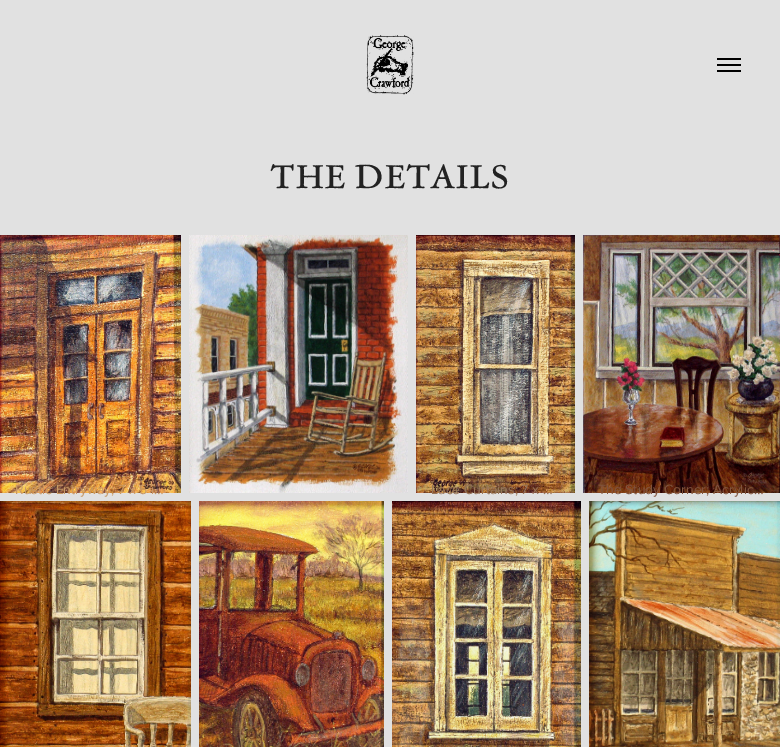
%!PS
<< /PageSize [780 747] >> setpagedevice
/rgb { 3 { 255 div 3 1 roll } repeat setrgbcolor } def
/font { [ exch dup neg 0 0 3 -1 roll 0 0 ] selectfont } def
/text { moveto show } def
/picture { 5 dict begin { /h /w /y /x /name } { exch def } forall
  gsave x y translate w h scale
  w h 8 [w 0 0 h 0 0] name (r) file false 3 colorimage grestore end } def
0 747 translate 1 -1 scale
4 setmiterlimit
225 225 225 rgb
0 0 780 747 rectfill
(img_01.rgb) 366 35 48 60 picture
0 0 0 rgb
717 58 24 2 rectfill
717 64 24 2 rectfill
717 70 24 2 rectfill
(img_02.rgb) 0 235 181 258 picture
(img_03.rgb) 189 235 219 258 picture
(img_04.rgb) 416 235 159 258 picture
(img_05.rgb) 583 235 197 258 picture
(img_06.rgb) 0 501 191 246 picture
(img_07.rgb) 199 501 185 246 picture
(img_08.rgb) 392 501 189 246 picture
(img_09.rgb) 589 501 191 246 picture
/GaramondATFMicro-Regular 31 font
34 34 34 rgb
(THE DETAILS) 270 188 text
/ProximaNova-Regular 14 font
199 152 101 rgb
(Rustic Entryway; 7 x 5 i…) 15 494 text
151 117 90 rgb
(Lace Curtains; 7 x …) 431 494 text
128 83 61 rgb
(The Study Corner; Acrylic…) 598 494 text
showpage
